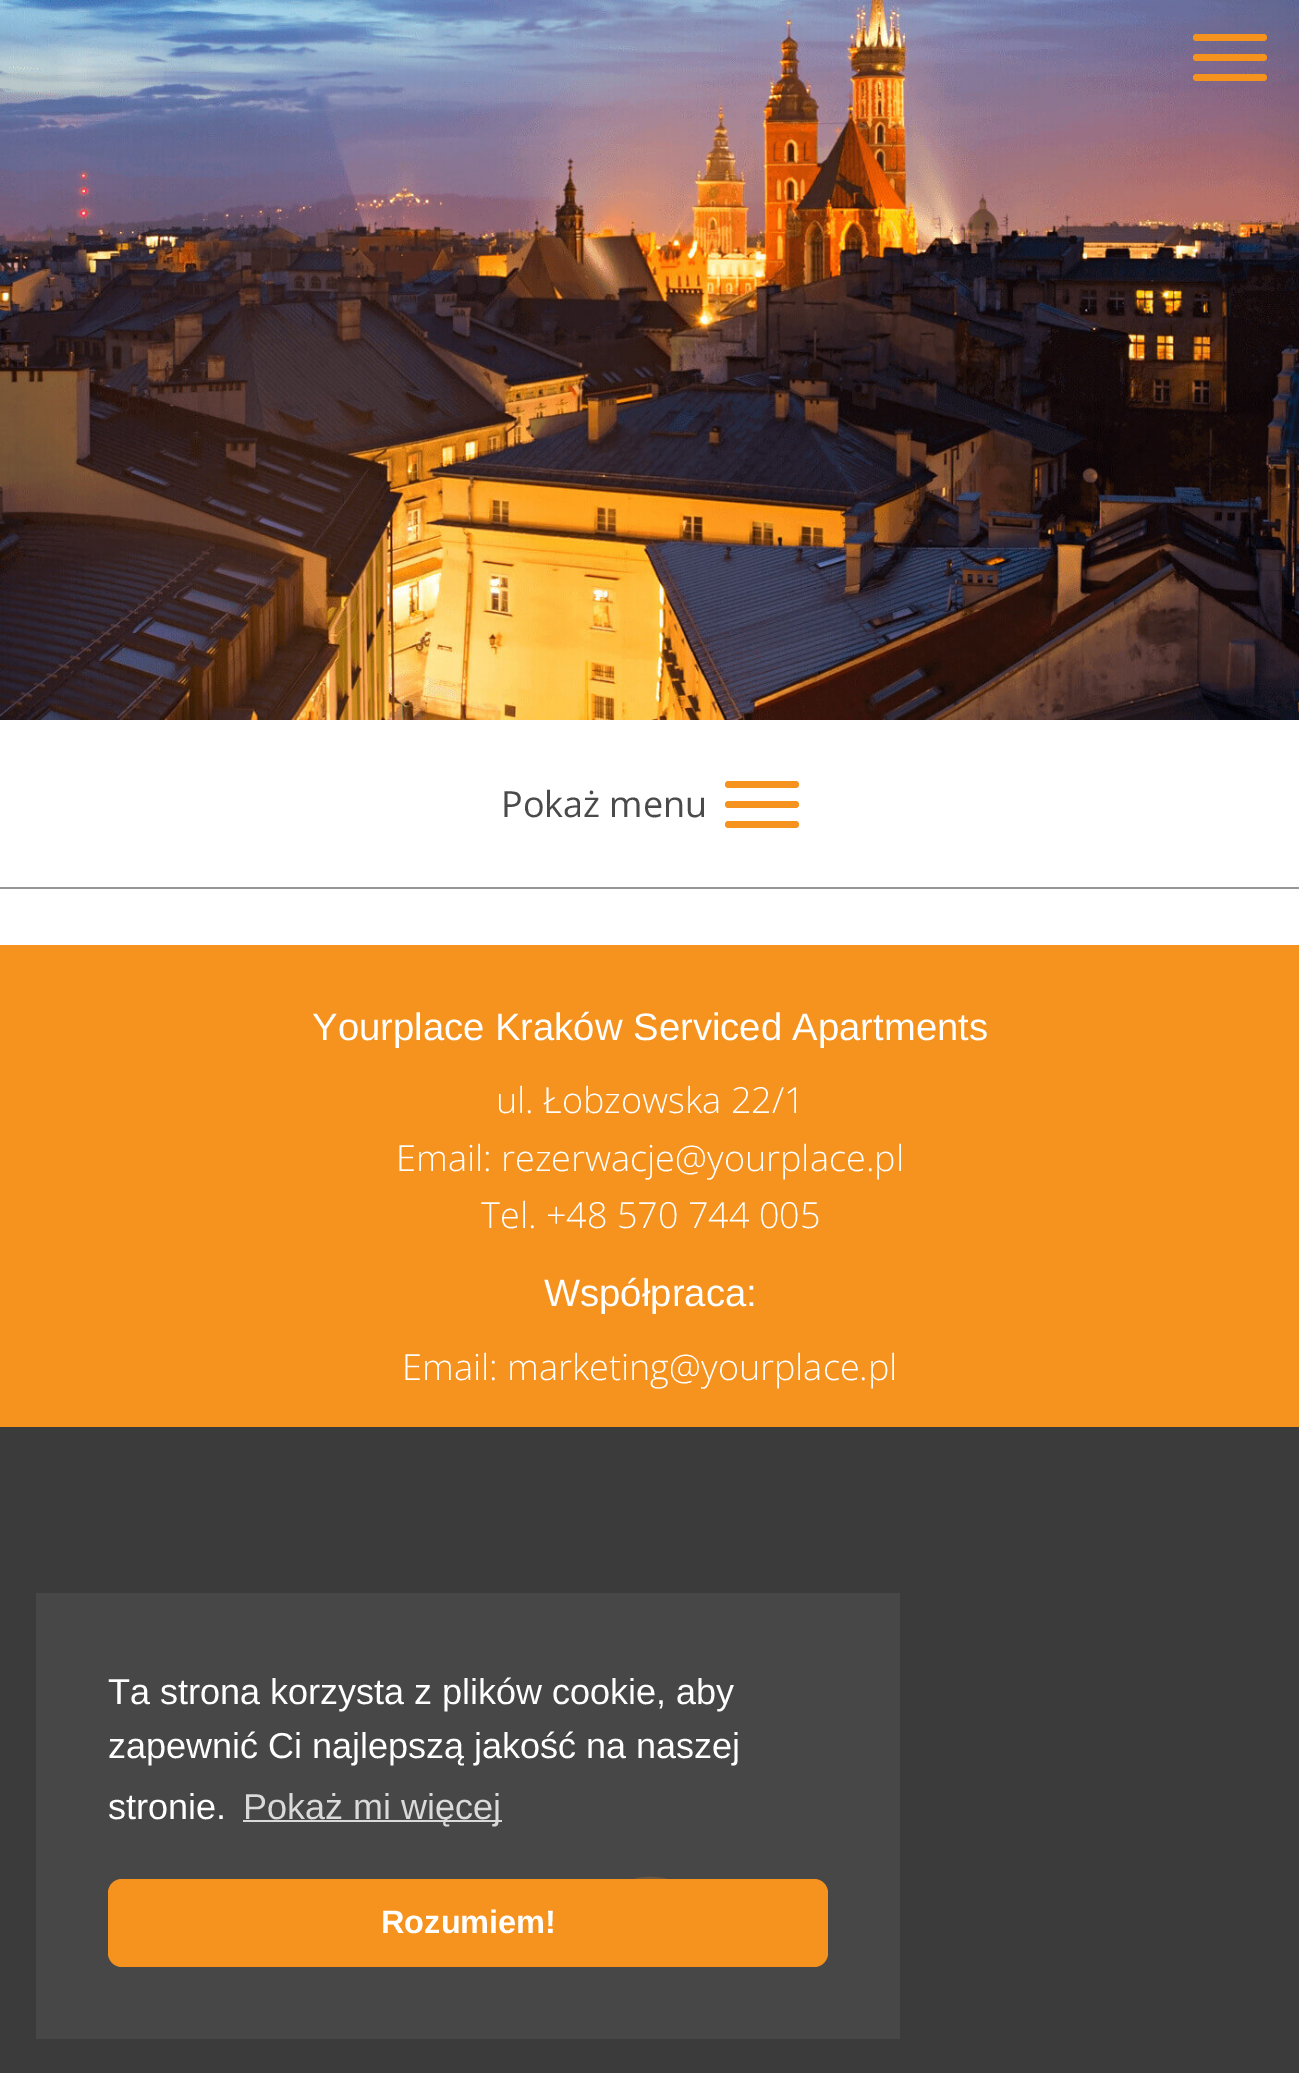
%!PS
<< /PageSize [1299 2073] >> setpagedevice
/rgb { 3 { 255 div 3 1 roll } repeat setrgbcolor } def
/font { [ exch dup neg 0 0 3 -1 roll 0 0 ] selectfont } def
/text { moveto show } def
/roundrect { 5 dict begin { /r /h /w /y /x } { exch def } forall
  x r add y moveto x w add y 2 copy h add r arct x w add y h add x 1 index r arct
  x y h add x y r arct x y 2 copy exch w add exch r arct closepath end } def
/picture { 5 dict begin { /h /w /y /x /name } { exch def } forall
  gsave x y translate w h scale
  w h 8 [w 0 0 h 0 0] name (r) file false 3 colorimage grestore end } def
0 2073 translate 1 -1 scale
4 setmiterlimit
255 255 255 rgb
0 0 1299 2073 rectfill
(img_01.rgb) 0 0 1299 720 picture
(img_02.rgb) 58 48 106 42 picture
246 146 30 rgb
1193 74 74 7 3.5 roundrect fill
1193 34 74 7 3.5 roundrect fill
1193 54 74 7 3.5 roundrect fill
151 151 151 rgb
0 887 1299 2 rectfill
246 146 30 rgb
725 801 74 7 3.5 roundrect fill
725 781 74 7 3.5 roundrect fill
725 821 74 7 3.5 roundrect fill
0 945 1299 482 rectfill
59 59 59 rgb
0 1427 1299 646 rectfill
71 71 71 rgb
36 1593 864 446 rectfill
108 88 65 rgb
6.8 setlinewidth
605 1898.5 moveto 24.5 -24.5 66 -24.5 90.5 0 rcurveto stroke
218 218 218 rgb
243 1820 259 2 rectfill
246 146 30 rgb
108 1879 720 88 14 roundrect fill
/OpenSans-Regular 36 font
74 74 74 rgb
(Pokaż menu) 501 817 text
/LiberationSans-Regular 38.25 font
255 255 255 rgb
(Yourplace Kraków Serviced Apartments) 312 1040 text
/OpenSans-Light 36 font
(ul. Łobzowska 22/1) 496 1113 text
(Email: rezerwacje@yourplace.pl) 396 1171 text
(Tel. +48 570 744 005) 481 1228 text
/LiberationSans-Regular 38.25 font
(Współpraca:) 544 1306 text
/OpenSans-Light 36 font
(Email: marketing@yourplace.pl) 402 1380 text
/LiberationSans-Regular 36 font
(Ta strona korzysta z plików cookie, aby) 108 1704 text
(zapewnić Ci najlepszą jakość na naszej) 108 1758 text
(stronie.) 108 1819 text
218 218 218 rgb
(Pokaż mi więcej) 243 1819 text
/LiberationSans-Bold 32.5 font
255 255 255 rgb
(Rozumiem!) 381 1933 text
showpage
